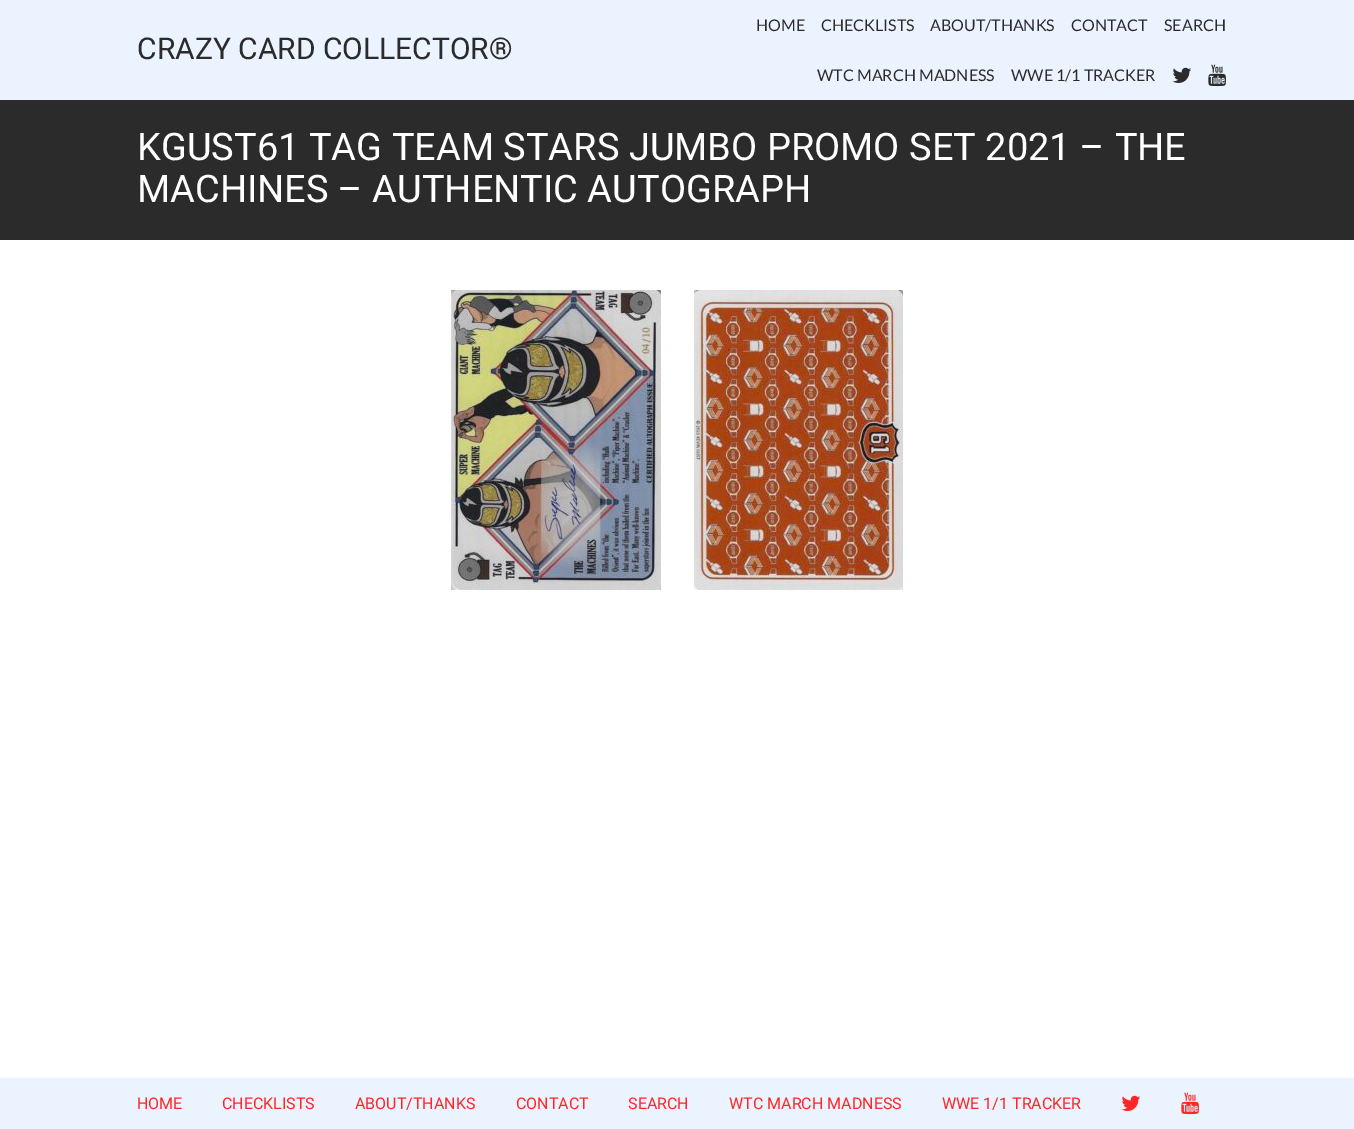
%!PS
<< /PageSize [1354 1129] >> setpagedevice
/rgb { 3 { 255 div 3 1 roll } repeat setrgbcolor } def
/font { [ exch dup neg 0 0 3 -1 roll 0 0 ] selectfont } def
/text { moveto show } def
/picture { 5 dict begin { /h /w /y /x /name } { exch def } forall
  gsave x y translate w h scale
  w h 8 [w 0 0 h 0 0] name (r) file false 3 colorimage grestore end } def
0 1129 translate 1 -1 scale
4 setmiterlimit
255 255 255 rgb
0 0 1354 1129 rectfill
235 243 254 rgb
0 0 1354 100 rectfill
(img_01.rgb) 1172 67 20 16 picture
(img_02.rgb) 1208 64 18 23 picture
43 43 43 rgb
0 100 1354 140 rectfill
(img_03.rgb) 451 290 210 300 picture
(img_04.rgb) 694 290 209 300 picture
235 243 254 rgb
0 1078 1354 51 rectfill
(img_05.rgb) 1121 1095 20 16 picture
(img_06.rgb) 1181 1092 18 23 picture
/Heebo-Regular 30 font
43 43 43 rgb
(CRAZY CARD COLLECTOR®) 137 59 text
/Lato-Regular 16 font
(HOME) 756 31 text
(CHECKLISTS) 821 31 text
(ABOUT/THANKS) 930 31 text
(CONTACT) 1071 31 text
(SEARCH) 1164 31 text
(WTC MARCH MADNESS) 817 81 text
(WWE 1/1 TRACKER) 1011 81 text
/Heebo-Regular 38 font
255 255 255 rgb
(KGUST61 TAG TEAM STARS JUMBO PROMO SET 2021 – THE) 137 160 text
(MACHINES – AUTHENTIC AUTOGRAPH) 137 202 text
/Roboto-Regular 16 font
255 38 38 rgb
(HOME) 137 1109 text
(CHECKLISTS) 222 1109 text
(ABOUT/THANKS) 355 1109 text
(CONTACT) 516 1109 text
(SEARCH) 628 1109 text
(WTC MARCH MADNESS) 729 1109 text
(WWE 1/1 TRACKER) 942 1109 text
showpage
